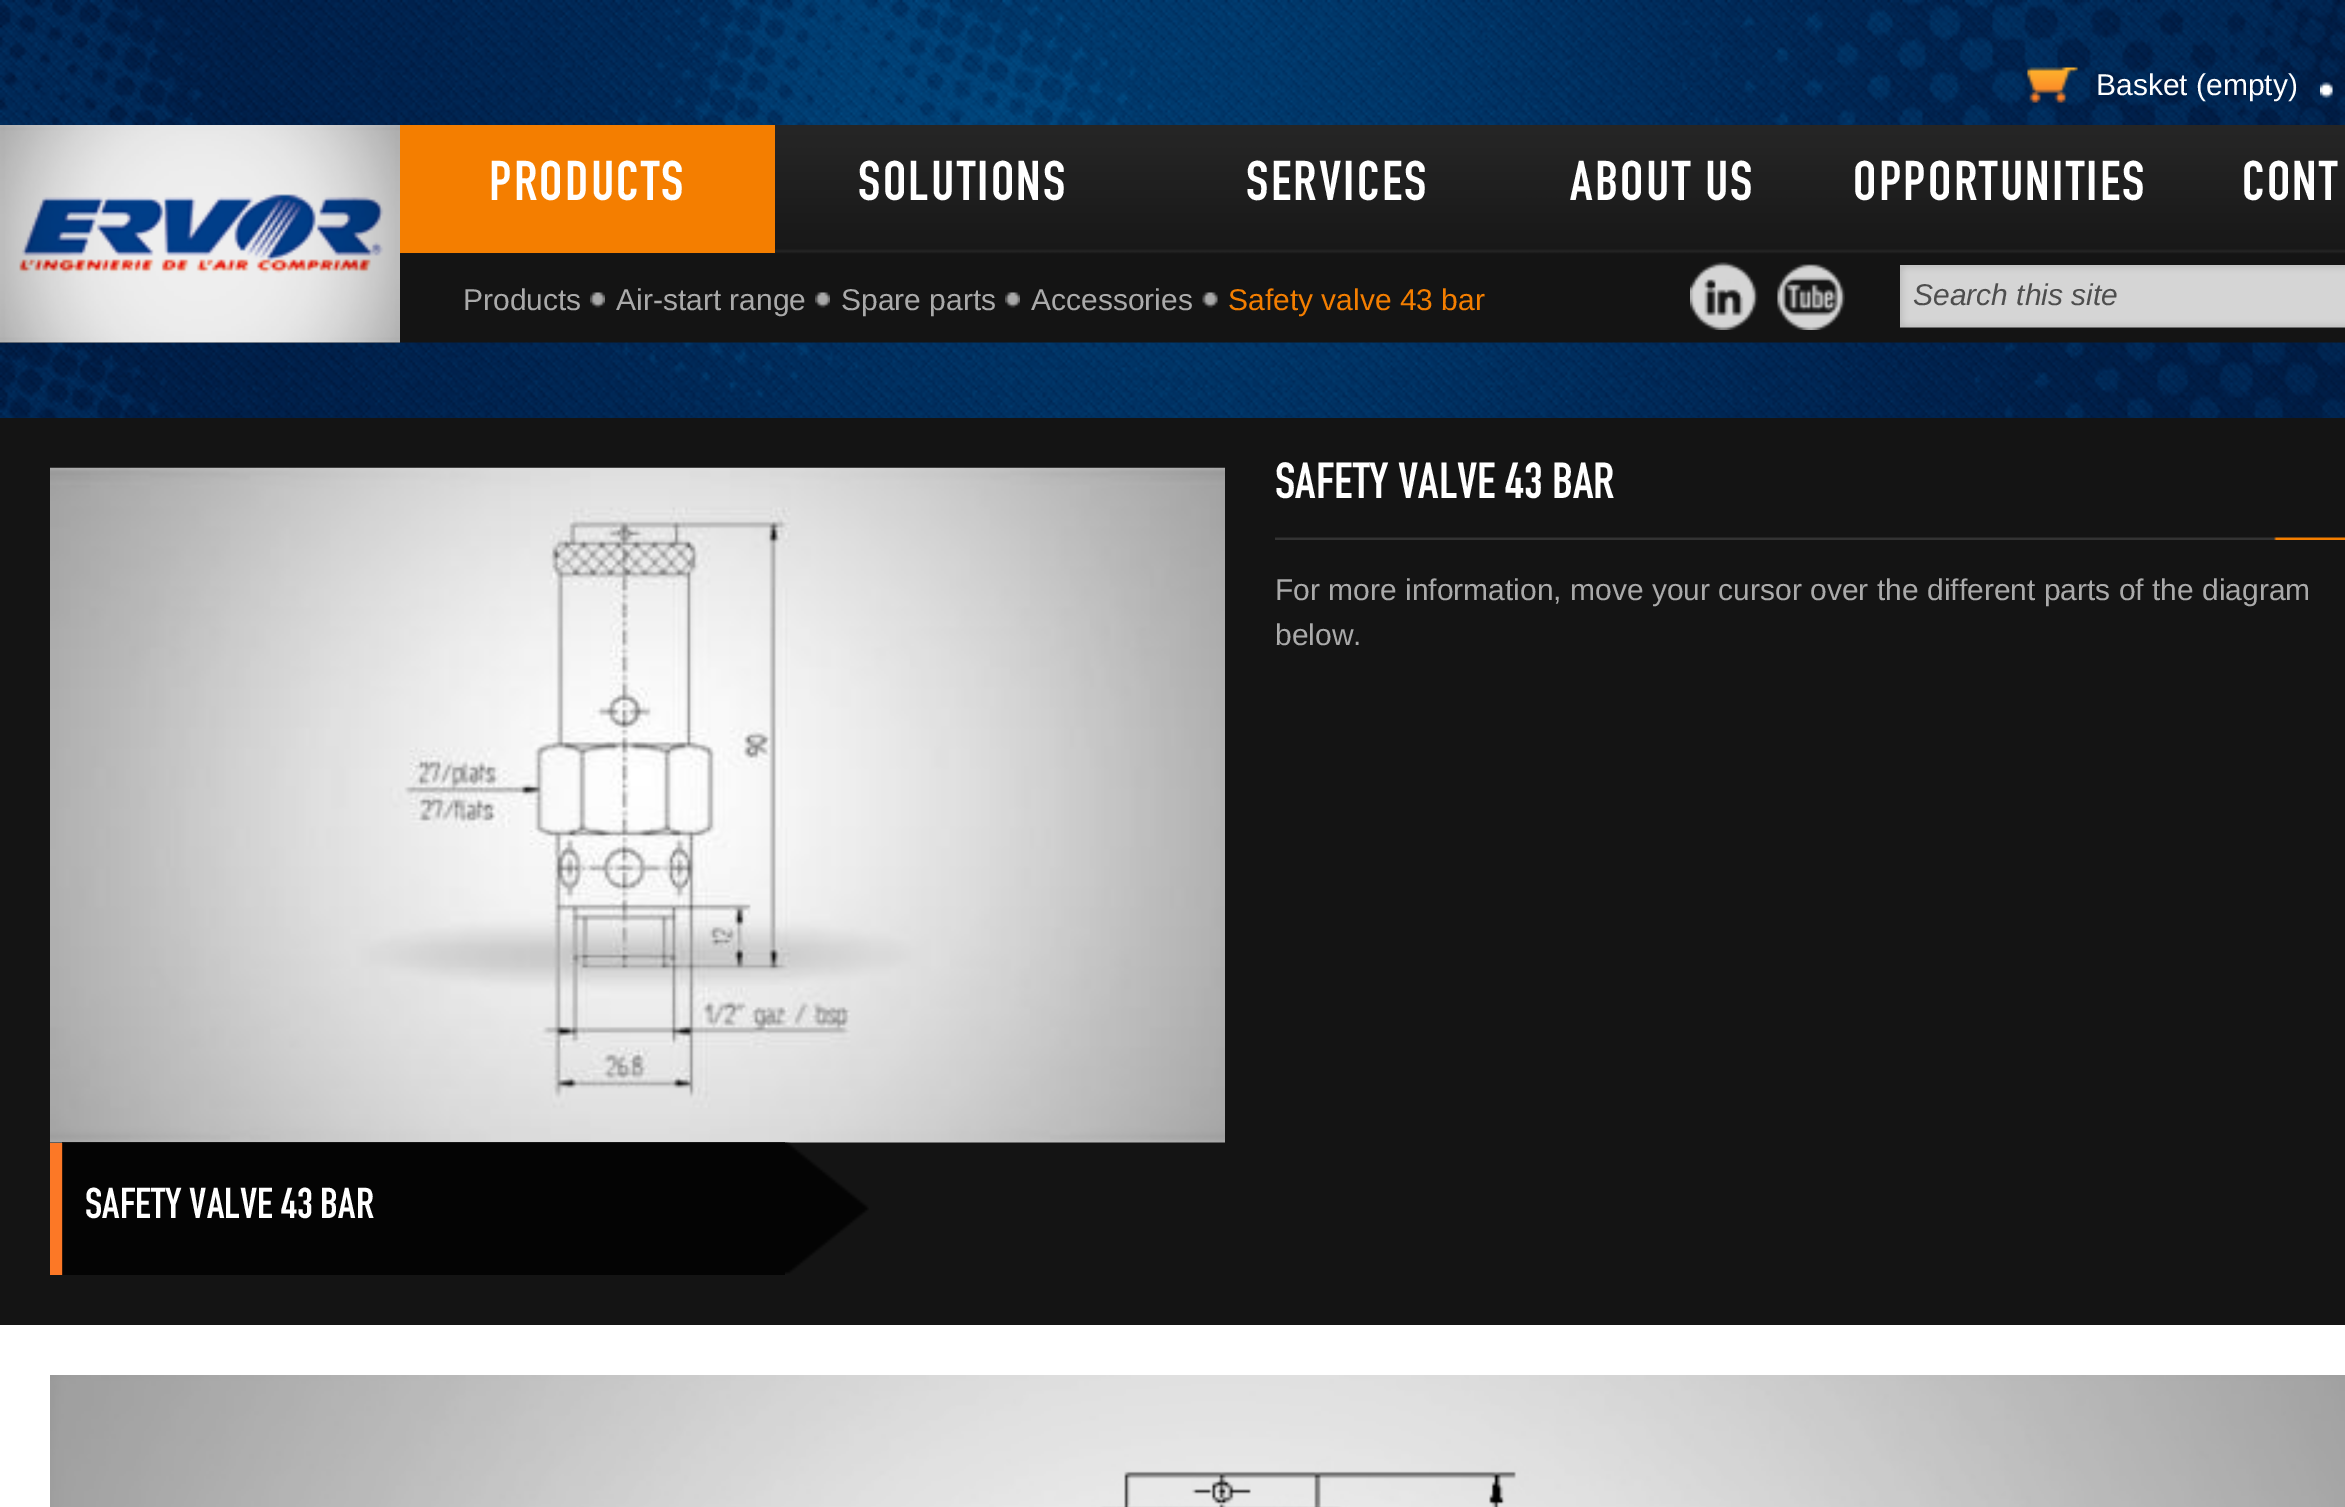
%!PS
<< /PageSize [2345 1507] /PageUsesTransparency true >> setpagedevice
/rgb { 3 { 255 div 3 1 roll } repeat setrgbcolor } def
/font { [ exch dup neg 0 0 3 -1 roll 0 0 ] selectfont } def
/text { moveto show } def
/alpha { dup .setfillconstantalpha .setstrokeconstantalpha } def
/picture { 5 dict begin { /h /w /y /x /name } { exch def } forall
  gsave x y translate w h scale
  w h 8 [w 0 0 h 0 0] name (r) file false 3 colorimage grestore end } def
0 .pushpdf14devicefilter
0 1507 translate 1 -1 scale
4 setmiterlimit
255 255 255 rgb
0 0 2345 1507 rectfill
(img_01.rgb) 0 0 2345 418 picture
(img_02.rgb) 2027 67 51 36 picture
(img_03.rgb) 2320 82 13 16 picture
(img_04.rgb) 0 125 2345 218 picture
(img_05.rgb) 0 125 400 218 picture
244 126 0 rgb
400 125 375 128 rectfill
(img_06.rgb) 1690 262 68 68 picture
(img_07.rgb) 1777 264 68 66 picture
(img_08.rgb) 1900 265 445 63 picture
(img_09.rgb) 590 292 15 16 picture
(img_10.rgb) 815 292 15 16 picture
(img_10.rgb) 1005 292 15 16 picture
(img_11.rgb) 1202 292 16 16 picture
20 20 20 rgb
0 418 2345 907 rectfill
(img_12.rgb) 1275 537 1070 3 picture
(img_13.rgb) 50 467 1175 676 picture
(img_14.rgb) 785 1142 84 132 picture
252 120 38 rgb
50 1143 13 132 rectfill
0.8 alpha
0 0 0 rgb
62 1142 723 133 rectfill
1 alpha
(img_15.rgb) 50 1375 2295 132 picture
/LiberationSans-Regular 30 font
255 255 255 rgb
(Basket \(empty\)) 2096 95 text
/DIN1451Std-Regular 55 font
489 200 moveto 2.25 0 (PRODUCTS) ashow
858 200 moveto 2.25 0 (SOLUTIONS) ashow
1246 200 moveto 2.25 0 (SERVICES) ashow
1570 200 moveto 2.25 0 (ABOUT US) ashow
1853 200 moveto 2.25 0 (OPPORTUNITIES) ashow
2242 200 moveto 2.25 0 (CONT) ashow
/LiberationSans-Italic 30 font
78 78 78 rgb
(Search this site) 1913 305 text
/LiberationSans-Regular 30 font
170 170 170 rgb
(Products) 463 310 text
(Air-start range) 616 310 text
(Spare parts) 841 310 text
(Accessories) 1031 310 text
244 126 0 rgb
(Safety valve 43 bar) 1228 310 text
/DIN1451Std-Regular 50 font
255 255 255 rgb
(SAFETY VALVE 43 BAR) 1275 498 text
/LiberationSans-Regular 30 font
170 170 170 rgb
(For more information, move your cursor over the different parts of the diagram) 1275 600 text
(below.) 1275 645 text
/DIN1451Std-Regular 42.5 font
255 255 255 rgb
(SAFETY VALVE 43 BAR) 85 1218 text
.poppdf14devicefilter showpage
